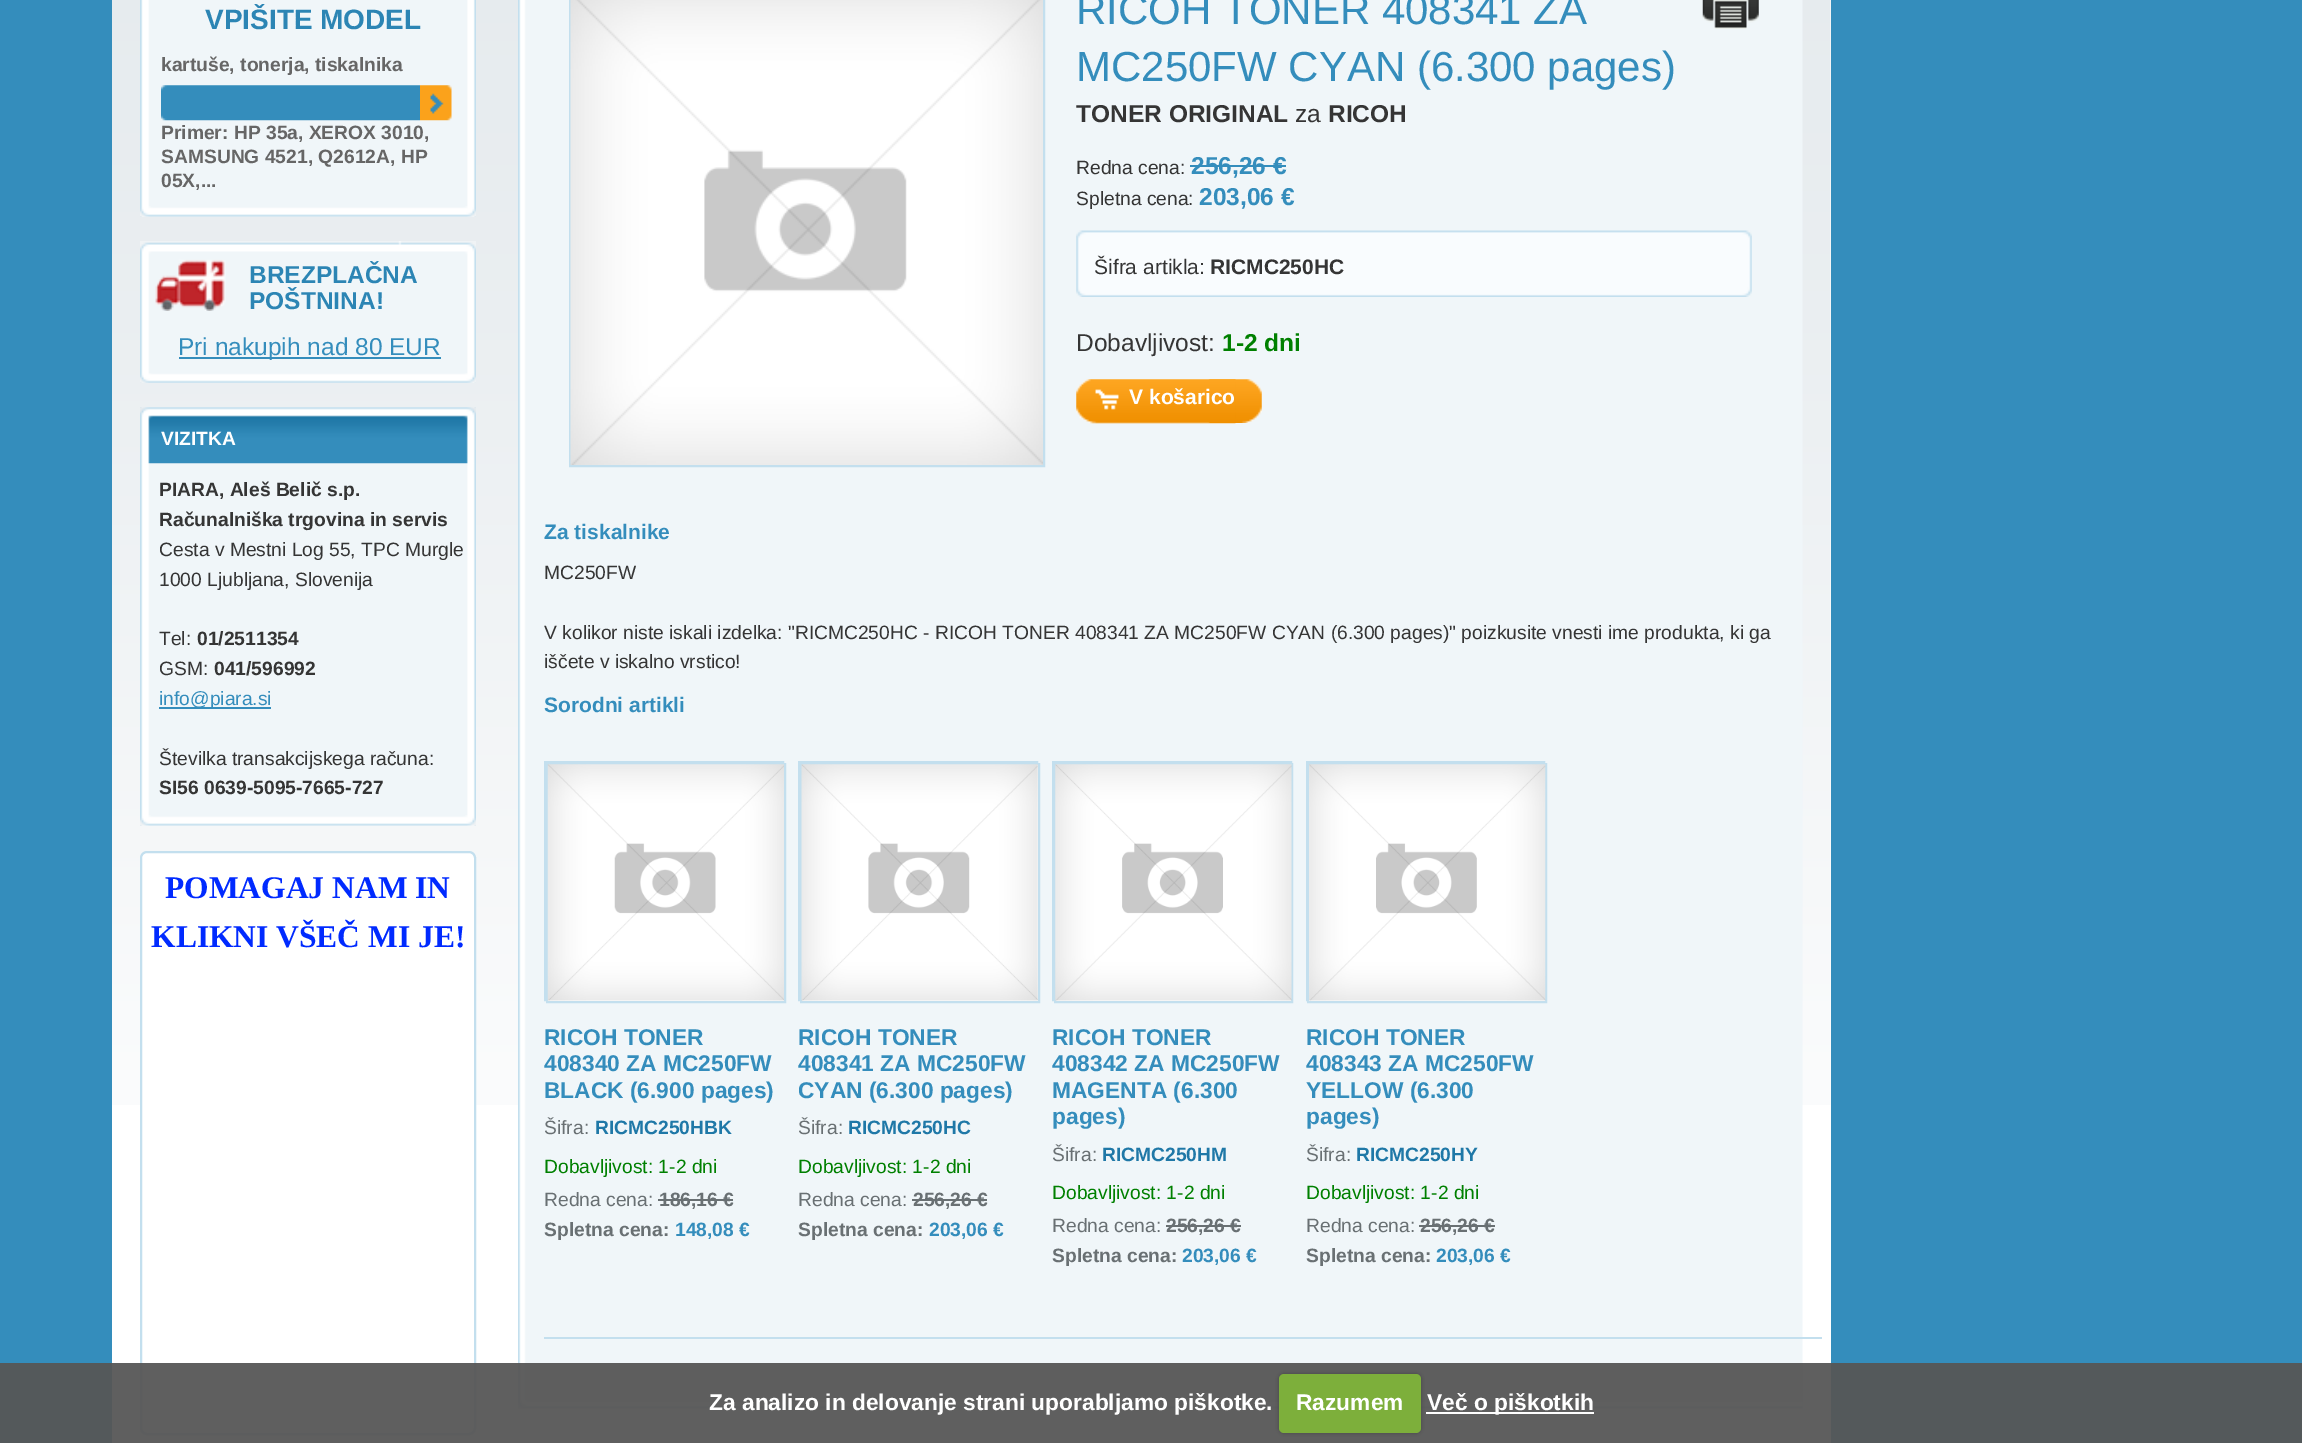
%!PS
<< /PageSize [2302 1443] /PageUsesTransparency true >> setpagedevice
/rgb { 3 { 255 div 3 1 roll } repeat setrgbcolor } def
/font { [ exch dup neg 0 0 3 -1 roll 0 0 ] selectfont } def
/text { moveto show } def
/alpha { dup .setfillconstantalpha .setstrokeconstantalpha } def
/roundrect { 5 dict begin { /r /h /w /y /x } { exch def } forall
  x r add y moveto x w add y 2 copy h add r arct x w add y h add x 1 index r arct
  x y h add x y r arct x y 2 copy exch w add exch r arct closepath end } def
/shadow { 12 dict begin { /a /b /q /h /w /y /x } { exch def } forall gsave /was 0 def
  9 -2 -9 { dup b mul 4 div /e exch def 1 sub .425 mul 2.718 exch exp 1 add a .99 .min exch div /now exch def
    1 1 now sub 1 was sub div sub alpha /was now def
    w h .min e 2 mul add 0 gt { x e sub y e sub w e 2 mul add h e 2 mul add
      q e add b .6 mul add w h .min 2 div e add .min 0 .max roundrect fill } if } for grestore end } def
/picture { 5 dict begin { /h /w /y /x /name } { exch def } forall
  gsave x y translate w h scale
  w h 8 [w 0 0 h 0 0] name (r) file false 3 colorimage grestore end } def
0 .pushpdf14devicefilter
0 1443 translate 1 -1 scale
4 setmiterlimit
52 141 188 rgb
0 0 2302 1443 rectfill
255 255 255 rgb
112 0 1719 1443 rectfill
(img_01.rgb) 112 0 1719 1105 picture
(img_02.rgb) 140 0 336 217 picture
(img_03.rgb) 140 206 336 11 picture
(img_04.rgb) 161 85 259 36 picture
(img_05.rgb) 420 85 32 36 picture
(img_06.rgb) 140 311 336 72 picture
(img_07.rgb) 140 241 336 70 picture
(img_08.rgb) 140 373 336 10 picture
52 141 188 rgb
179 357 262 2 rectfill
(img_09.rgb) 140 407 336 419 picture
(img_10.rgb) 140 407 336 57 picture
(img_11.rgb) 140 815 336 11 picture
159 707 112 2 rectfill
255 255 255 rgb
141 852 334 582 6 roundrect gsave fill grestore
195 223 238 rgb
2 setlinewidth
stroke
(img_12.rgb) 518 0 1285 1409 picture
570 -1 474 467 rectstroke
(img_13.rgb) 570 0 473 465 picture
(img_14.rgb) 1702 0 57 29 picture
52 141 188 rgb
1190 165 96 2 rectfill
(img_15.rgb) 1076 230 676 67 picture
(img_16.rgb) 1208 379 54 44 picture
(img_17.rgb) 1076 379 160 45 picture
(img_18.rgb) 518 1399 1285 10 picture
195 223 238 rgb
544 1337 1278 2 rectfill
545 762 238 238 rectstroke
255 255 255 rgb
548 1000 236 1 rectfill
195 223 238 rgb
547 764 238 238 rectstroke
(img_19.rgb) 547 764 237 237 picture
105 112 115 rgb
658 1199 75 2 rectfill
195 223 238 rgb
799 762 238 238 rectstroke
255 255 255 rgb
801 764 moveto 238 0 rlineto 0 238 rlineto -238 0 rlineto closepath gsave fill grestore
195 223 238 rgb
stroke
(img_20.rgb) 801 764 237 237 picture
105 112 115 rgb
912 1199 75 2 rectfill
195 223 238 rgb
1053 762 238 238 rectstroke
255 255 255 rgb
1056 1000 235 1 rectfill
195 223 238 rgb
1055 764 237 238 rectstroke
(img_21.rgb) 1055 764 237 237 picture
105 112 115 rgb
1166 1225 75 2 rectfill
195 223 238 rgb
1307 762 237 238 rectstroke
255 255 255 rgb
1309 1000 236 1 rectfill
195 223 238 rgb
1308 764 238 238 rectstroke
(img_22.rgb) 1309 764 237 237 picture
105 112 115 rgb
1419 1225 76 2 rectfill
0.95 alpha
86 86 86 rgb
0 1363 2302 80 rectfill
1 alpha
0 0 0 rgb
1279 1374 142 59 5 2 0.25 shadow
125 175 59 rgb
1279 1374 142 59 5 roundrect fill
255 255 255 rgb
1426 1412 168 2 rectfill
/LiberationSans-Bold 28 font
44 133 180 rgb
(VPIŠITE MODEL) 205 29 text
/LiberationSans-Bold 19.25 font
102 102 102 rgb
(kartuše, tonerja, tiskalnika) 161 71 text
(Primer: HP 35a, XEROX 3010,) 161 139 text
(SAMSUNG 4521, Q2612A, HP) 161 163 text
(05X,...) 161 187 text
/LiberationSans-Bold 24.5 font
44 133 180 rgb
(BREZPLAČNA) 249 283 text
(POŠTNINA!) 249 309 text
/LiberationSans-Regular 24.5 font
52 141 188 rgb
(Pri nakupih nad 80 EUR) 178 355 text
/LiberationSans-Bold 19.25 font
255 255 255 rgb
(VIZITKA) 161 445 text
53 53 53 rgb
(PIARA, Aleš Belič s.p.) 159 496 text
(Računalniška trgovina in servis) 159 526 text
/LiberationSans-Regular 19.25 font
(Cesta v Mestni Log 55, TPC Murgle) 159 556 text
(1000 Ljubljana, Slovenija) 159 586 text
(Tel:) 159 645 text
/LiberationSans-Bold 19.25 font
(01/2511354) 197 645 text
/LiberationSans-Regular 19.25 font
(GSM:) 159 675 text
/LiberationSans-Bold 19.25 font
(041/596992) 214 675 text
/LiberationSans-Regular 19.25 font
52 141 188 rgb
(info@piara.si) 159 705 text
53 53 53 rgb
(Številka transakcijskega računa:) 159 765 text
/LiberationSans-Bold 19.25 font
(SI56 0639-5095-7665-727) 159 794 text
/LiberationSerif-Bold 31.5 font
0 42 255 rgb
(POMAGAJ NAM IN) 165 898 text
(KLIKNI VŠEČ MI JE!) 151 947 text
/LiberationSans-Regular 42 font
52 141 188 rgb
(RICOH TONER 408341 ZA) 1076 24 text
(MC250FW CYAN \(6.300 pages\)) 1076 81 text
/LiberationSans-Bold 24.5 font
53 53 53 rgb
(TONER ORIGINAL) 1076 122 text
/LiberationSans-Regular 24.5 font
(za) 1295 122 text
/LiberationSans-Bold 24.5 font
(RICOH) 1328 122 text
/LiberationSans-Regular 19.25 font
(Redna cena:) 1076 174 text
/LiberationSans-Bold 24.5 font
52 141 188 rgb
(256,26 €) 1191 174 text
/LiberationSans-Regular 19.25 font
53 53 53 rgb
(Spletna cena:) 1076 205 text
/LiberationSans-Bold 24.5 font
52 141 188 rgb
(203,06 €) 1199 205 text
/LiberationSans-Regular 21 font
53 53 53 rgb
(Šifra artikla:) 1094 274 text
/LiberationSans-Bold 21 font
(RICMC250HC) 1210 274 text
/LiberationSans-Regular 24.5 font
(Dobavljivost:) 1076 351 text
/LiberationSans-Bold 24.5 font
0 128 0 rgb
(1-2 dni) 1222 351 text
/LiberationSans-Bold 21 font
255 255 255 rgb
(V košarico) 1129 404 text
52 141 188 rgb
(Za tiskalnike) 544 539 text
/LiberationSans-Regular 19.25 font
53 53 53 rgb
(MC250FW) 544 579 text
(V kolikor niste iskali izdelka: "RICMC250HC - RICOH TONER 408341 ZA MC250FW CYAN \(6.300 pages\)" poizkusite vnesti ime produkta, ki ga) 544 639 text
(iščete v iskalno vrstico!) 544 668 text
/LiberationSans-Bold 21 font
52 141 188 rgb
(Sorodni artikli) 544 712 text
/LiberationSans-Bold 22.75 font
(RICOH TONER) 544 1045 text
(408340 ZA MC250FW) 544 1071 text
(BLACK \(6.900 pages\)) 544 1098 text
/LiberationSans-Regular 19.25 font
105 112 115 rgb
(Šifra:) 544 1134 text
/LiberationSans-Bold 19.25 font
31 120 167 rgb
(RICMC250HBK) 595 1134 text
/LiberationSans-Regular 19.25 font
0 128 0 rgb
(Dobavljivost: 1-2 dni) 544 1173 text
105 112 115 rgb
(Redna cena:) 544 1206 text
/LiberationSans-Bold 19.25 font
(186,16 €) 659 1206 text
(Spletna cena:) 544 1236 text
52 141 188 rgb
(148,08 €) 675 1236 text
/LiberationSans-Bold 22.75 font
(RICOH TONER) 798 1045 text
(408341 ZA MC250FW) 798 1071 text
(CYAN \(6.300 pages\)) 798 1098 text
/LiberationSans-Regular 19.25 font
105 112 115 rgb
(Šifra:) 798 1134 text
/LiberationSans-Bold 19.25 font
31 120 167 rgb
(RICMC250HC) 848 1134 text
/LiberationSans-Regular 19.25 font
0 128 0 rgb
(Dobavljivost: 1-2 dni) 798 1173 text
105 112 115 rgb
(Redna cena:) 798 1206 text
/LiberationSans-Bold 19.25 font
(256,26 €) 913 1206 text
(Spletna cena:) 798 1236 text
52 141 188 rgb
(203,06 €) 929 1236 text
/LiberationSans-Bold 22.75 font
(RICOH TONER) 1052 1045 text
(408342 ZA MC250FW) 1052 1071 text
(MAGENTA \(6.300) 1052 1098 text
(pages\)) 1052 1124 text
/LiberationSans-Regular 19.25 font
105 112 115 rgb
(Šifra:) 1052 1161 text
/LiberationSans-Bold 19.25 font
31 120 167 rgb
(RICMC250HM) 1102 1161 text
/LiberationSans-Regular 19.25 font
0 128 0 rgb
(Dobavljivost: 1-2 dni) 1052 1199 text
105 112 115 rgb
(Redna cena:) 1052 1232 text
/LiberationSans-Bold 19.25 font
(256,26 €) 1166 1232 text
(Spletna cena:) 1052 1262 text
52 141 188 rgb
(203,06 €) 1182 1262 text
/LiberationSans-Bold 22.75 font
(RICOH TONER) 1306 1045 text
(408343 ZA MC250FW) 1306 1071 text
(YELLOW \(6.300) 1306 1098 text
(pages\)) 1306 1124 text
/LiberationSans-Regular 19.25 font
105 112 115 rgb
(Šifra:) 1306 1161 text
/LiberationSans-Bold 19.25 font
31 120 167 rgb
(RICMC250HY) 1356 1161 text
/LiberationSans-Regular 19.25 font
0 128 0 rgb
(Dobavljivost: 1-2 dni) 1306 1199 text
105 112 115 rgb
(Redna cena:) 1306 1232 text
/LiberationSans-Bold 19.25 font
(256,26 €) 1420 1232 text
(Spletna cena:) 1306 1262 text
52 141 188 rgb
(203,06 €) 1436 1262 text
/LiberationSans-Bold 22.75 font
255 255 255 rgb
(Za analizo in delovanje strani uporabljamo piškotke.) 709 1410 text
(Razumem) 1296 1410 text
(Več o piškotkih) 1427 1410 text
.poppdf14devicefilter showpage
